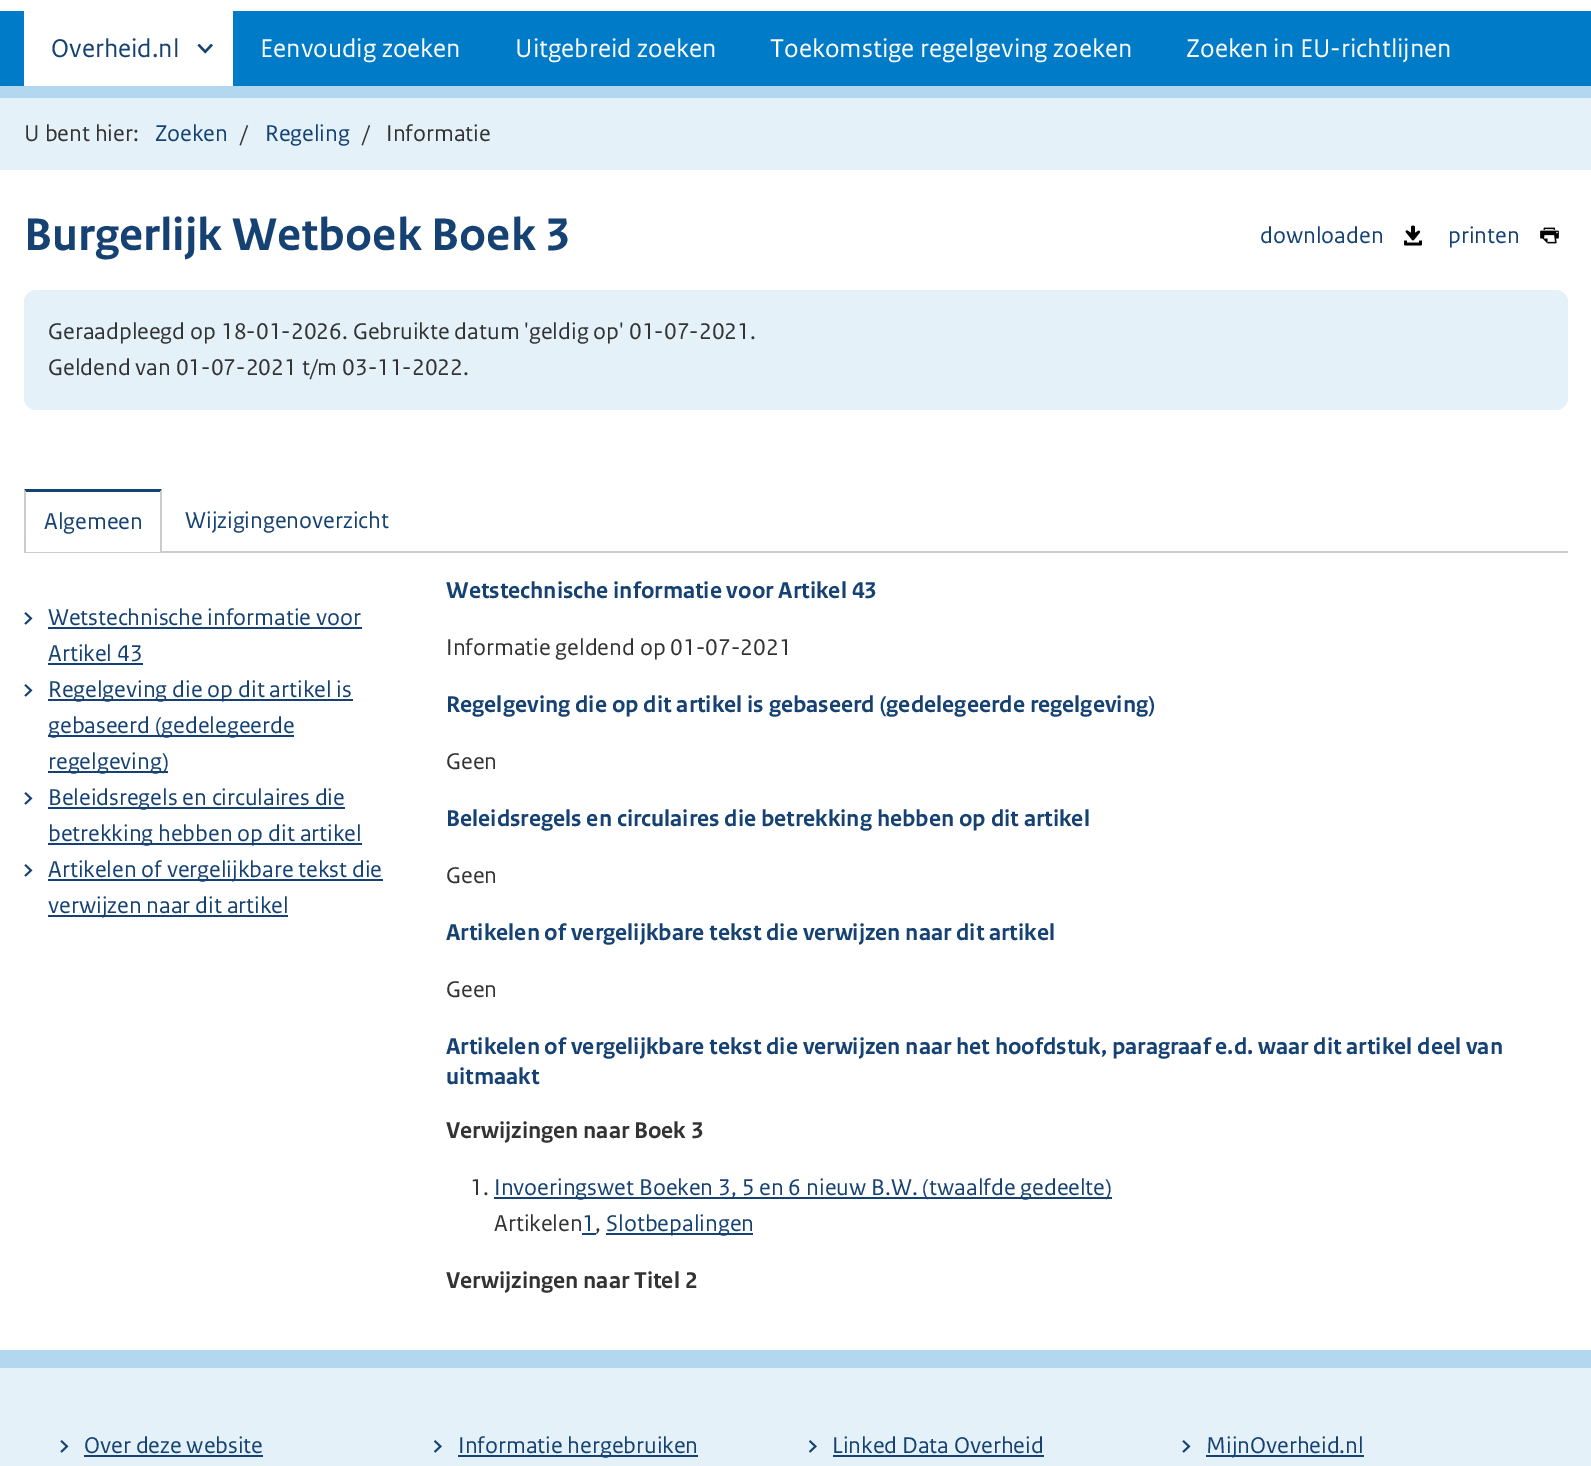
%!PS
<< /PageSize [1591 1466] >> setpagedevice
/rgb { 3 { 255 div 3 1 roll } repeat setrgbcolor } def
/font { [ exch dup neg 0 0 3 -1 roll 0 0 ] selectfont } def
/text { moveto show } def
/roundrect { 5 dict begin { /r /h /w /y /x } { exch def } forall
  x r add y moveto x w add y 2 copy h add r arct x w add y h add x 1 index r arct
  x y h add x y r arct x y 2 copy exch w add exch r arct closepath end } def
/picture { 5 dict begin { /h /w /y /x /name } { exch def } forall
  gsave x y translate w h scale
  w h 8 [w 0 0 h 0 0] name (r) file false 3 colorimage grestore end } def
0 1466 translate 1 -1 scale
4 setmiterlimit
255 255 255 rgb
0 0 1591 1466 rectfill
178 215 238 rgb
0 86 1591 12 rectfill
0 123 199 rgb
0 11 1591 75 rectfill
255 255 255 rgb
24 11 209 75 rectfill
(img_01.rgb) 197 44 16 10 picture
229 241 249 rgb
0 98 1591 72 rectfill
(img_02.rgb) 1404 225 18 21 picture
(img_03.rgb) 1540 227 19 17 picture
24 290 1544 120 12 roundrect fill
204 204 204 rgb
24 551 1544 2 rectfill
255 255 255 rgb
24 551 138 1 rectfill
21 66 115 rgb
24 489 moveto 138 0 rlineto -2 3 rlineto -134 0 rlineto closepath fill
204 204 204 rgb
162 489 moveto 0 63 rlineto -2 0 rlineto 0 -60 rlineto closepath fill
24 552 moveto 0 -63 rlineto 2 3 rlineto 0 60 rlineto closepath fill
(img_04.rgb) 24 612 9 13 picture
21 66 115 rgb
48 627 314 2 rectfill
48 663 95 2 rectfill
(img_04.rgb) 24 684 9 13 picture
48 699 305 2 rectfill
48 735 246 2 rectfill
48 771 120 2 rectfill
(img_04.rgb) 24 792 9 13 picture
48 807 297 2 rectfill
48 843 314 2 rectfill
(img_04.rgb) 24 864 9 13 picture
48 879 335 2 rectfill
48 915 240 2 rectfill
494 1197 618 2 rectfill
582 1233 14 2 rectfill
606 1233 147 2 rectfill
229 241 249 rgb
0 1368 1591 98 rectfill
178 215 238 rgb
0 1350 1591 18 rectfill
(img_05.rgb) 60 1440 9 13 picture
21 66 115 rgb
84 1455 179 2 rectfill
(img_06.rgb) 434 1440 8 13 picture
458 1455 240 2 rectfill
(img_06.rgb) 809 1440 8 13 picture
833 1455 211 2 rectfill
(img_05.rgb) 1182 1440 9 13 picture
1206 1455 158 2 rectfill
/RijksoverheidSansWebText-Regular 27 font
(Overheid.nl) 51 57 text
255 255 255 rgb
(Eenvoudig zoeken) 260 57 text
(Uitgebreid zoeken) 515 57 text
(Toekomstige regelgeving zoeken) 770 57 text
(Zoeken in EU-richtlijnen) 1186 57 text
/RijksoverheidSansWebText-Regular 24 font
51 51 51 rgb
(U bent hier:) 24 141 text
21 66 115 rgb
(Zoeken) 155 141 text
51 51 51 rgb
(/) 240 141 text
21 66 115 rgb
(Regeling) 265 141 text
51 51 51 rgb
(/) 362 141 text
(Informatie) 386 141 text
/RijksoverheidSansWebText-Bold 48 font
21 66 115 rgb
(Burgerlijk Wetboek Boek 3) 24 250 text
/RijksoverheidSansWebText-Regular 24 font
(downloaden) 1260 243 text
(printen) 1448 243 text
51 51 51 rgb
(Geraadpleegd op 18-01-2026. Gebruikte datum 'geldig op' 01-07-2021.) 48 339 text
(Geldend van 01-07-2021 t/m 03-11-2022.) 48 375 text
21 66 115 rgb
(Algemeen) 44 529 text
(Wijzigingenoverzicht) 185 528 text
(Wetstechnische informatie voor) 48 625 text
(Artikel 43) 48 661 text
(Regelgeving die op dit artikel is) 48 697 text
(gebaseerd \(gedelegeerde) 48 733 text
(regelgeving\)) 48 769 text
(Beleidsregels en circulaires die) 48 805 text
(betrekking hebben op dit artikel) 48 841 text
(Artikelen of vergelijkbare tekst die) 48 877 text
(verwijzen naar dit artikel) 48 913 text
/RijksoverheidSansWebText-Bold 24 font
(Wetstechnische informatie voor Artikel 43) 446 598 text
/RijksoverheidSansWebText-Regular 24 font
51 51 51 rgb
(Informatie geldend op 01-07-2021) 446 655 text
/RijksoverheidSansWebText-Bold 24 font
21 66 115 rgb
(Regelgeving die op dit artikel is gebaseerd \(gedelegeerde regelgeving\)) 446 712 text
/RijksoverheidSansWebText-Regular 24 font
51 51 51 rgb
(Geen) 446 769 text
/RijksoverheidSansWebText-Bold 24 font
21 66 115 rgb
(Beleidsregels en circulaires die betrekking hebben op dit artikel) 446 826 text
/RijksoverheidSansWebText-Regular 24 font
51 51 51 rgb
(Geen) 446 883 text
/RijksoverheidSansWebText-Bold 24 font
21 66 115 rgb
(Artikelen of vergelijkbare tekst die verwijzen naar dit artikel) 446 940 text
/RijksoverheidSansWebText-Regular 24 font
51 51 51 rgb
(Geen) 446 997 text
/RijksoverheidSansWebText-Bold 24 font
21 66 115 rgb
(Artikelen of vergelijkbare tekst die verwijzen naar het hoofdstuk, paragraaf e.d. waar dit artikel deel van) 446 1054 text
(uitmaakt) 446 1084 text
51 51 51 rgb
(Verwijzingen naar Boek 3) 446 1138 text
/RijksoverheidSansWebText-Regular 24 font
(1.) 470 1195 text
21 66 115 rgb
(Invoeringswet Boeken 3, 5 en 6 nieuw B.W. \(twaalfde gedeelte\)) 494 1195 text
51 51 51 rgb
(Artikelen) 494 1231 text
21 66 115 rgb
(1) 582 1231 text
51 51 51 rgb
(,) 595 1231 text
21 66 115 rgb
(Slotbepalingen) 606 1231 text
/RijksoverheidSansWebText-Bold 24 font
51 51 51 rgb
(Verwijzingen naar Titel 2) 446 1288 text
/RijksoverheidSansWebText-Regular 24 font
21 66 115 rgb
(Over deze website) 84 1453 text
(Informatie hergebruiken) 458 1453 text
(Linked Data Overheid) 832 1453 text
(MijnOverheid.nl) 1206 1453 text
showpage
